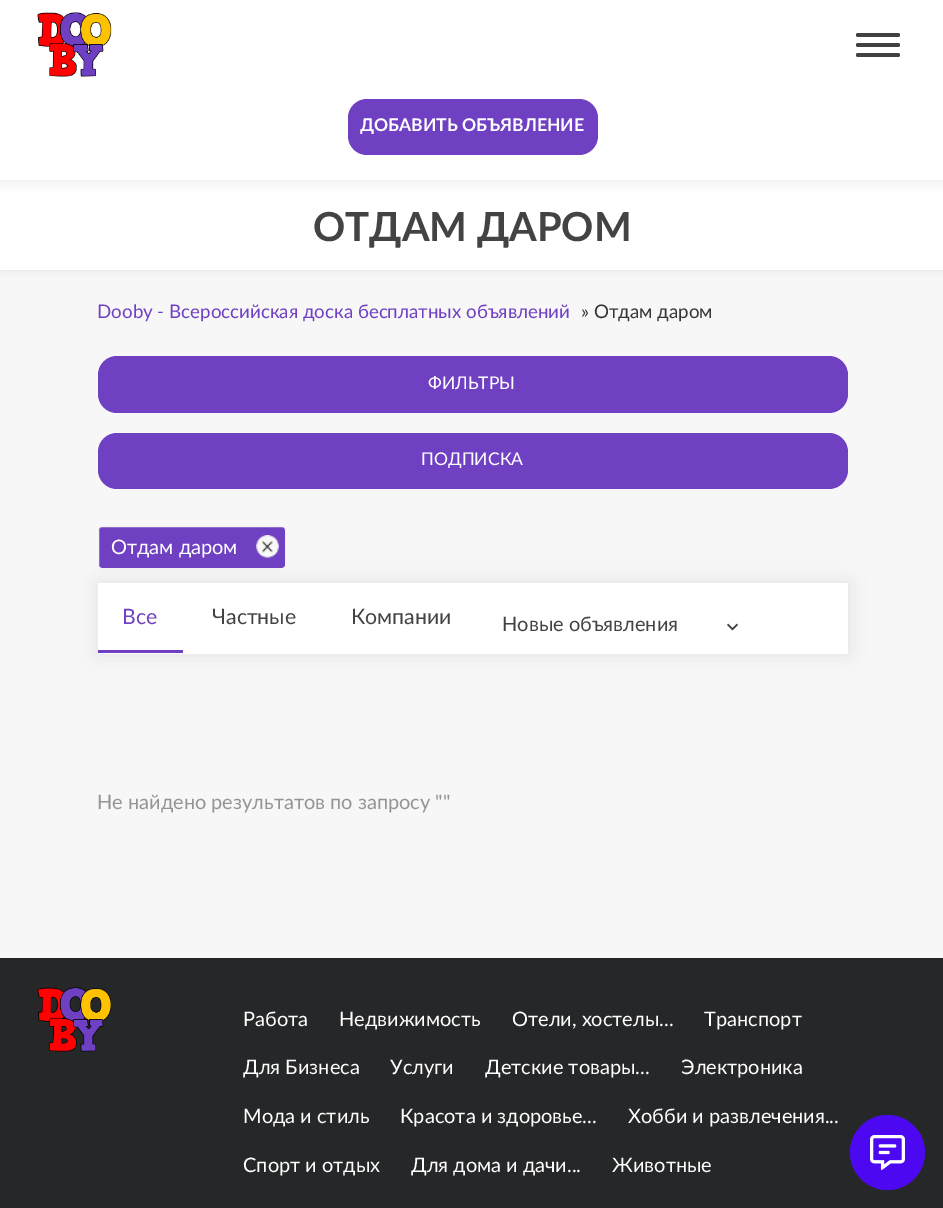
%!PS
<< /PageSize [943 1208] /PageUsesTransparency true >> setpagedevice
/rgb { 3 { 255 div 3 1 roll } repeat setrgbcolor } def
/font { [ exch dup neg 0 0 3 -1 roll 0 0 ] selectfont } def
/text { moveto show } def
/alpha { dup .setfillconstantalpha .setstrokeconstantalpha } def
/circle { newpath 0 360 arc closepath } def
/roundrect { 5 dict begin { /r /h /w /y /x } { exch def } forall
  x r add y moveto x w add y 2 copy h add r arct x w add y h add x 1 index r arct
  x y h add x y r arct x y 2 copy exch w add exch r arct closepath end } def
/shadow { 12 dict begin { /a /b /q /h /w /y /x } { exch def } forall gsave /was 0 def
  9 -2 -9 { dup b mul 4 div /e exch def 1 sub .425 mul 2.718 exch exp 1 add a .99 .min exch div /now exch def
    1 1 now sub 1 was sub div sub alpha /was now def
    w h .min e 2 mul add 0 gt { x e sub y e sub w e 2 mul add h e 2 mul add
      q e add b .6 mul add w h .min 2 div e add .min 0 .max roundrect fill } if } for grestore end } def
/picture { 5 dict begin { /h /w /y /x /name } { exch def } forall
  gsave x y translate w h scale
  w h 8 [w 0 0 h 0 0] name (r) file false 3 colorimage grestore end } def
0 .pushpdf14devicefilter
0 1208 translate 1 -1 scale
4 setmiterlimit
248 247 247 rgb
0 0 943 1208 rectfill
48 48 48 rgb
0 0 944 270 0 4 0.11 shadow
255 255 255 rgb
0 0 943 270 rectfill
gsave
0 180 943 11 rectclip
109 109 109 rgb
0 0 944 180 0 10 0.16 shadow
grestore
(img_01.rgb) 37 12 75 65 picture
66 65 65 rgb
856 33 44 4 2 roundrect fill
856 43 44 4 2 roundrect fill
856 53 44 4 2 roundrect fill
111 64 194 rgb
348 99 250 56 19 roundrect fill
98 356 750 57 19 roundrect fill
98 433 750 56 19 roundrect fill
109 109 109 rgb
98 583 750 71 0 10 0.16 shadow
111 64 194 rgb
98.5 526.5 187 42 3.5 roundrect gsave fill grestore
242 242 242 rgb
stroke
(img_02.rgb) 256 535 23 23 picture
255 255 255 rgb
98 583 750 71 rectfill
111 64 194 rgb
98 650 85 3 rectfill
(img_03.rgb) 727 623 11 8 picture
38 39 40 rgb
0 958 943 250 rectfill
(img_04.rgb) 37 987 75 65 picture
77 8 242 rgb
887.5 1152.5 37.5 circle fill
(img_05.rgb) 870 1135 35 35 picture
/Lato-Bold 17.5 font
255 255 255 rgb
(ДОБАВИТЬ ОБЪЯВЛЕНИЕ) 360 131 text
/Lato-Bold 40 font
68 67 67 rgb
(ОТДАМ ДАРОМ) 313 241 text
/Lato-Regular 18.75 font
111 64 194 rgb
(Dooby - Всероссийская доска бесплатных объявлений) 97 318 text
54 53 53 rgb
(» Отдам даром) 581 318 text
/Lato-Regular 17.5 font
255 255 255 rgb
(ФИЛЬТРЫ) 428 389 text
(ПОДПИСКА) 421 465 text
/Lato-Regular 20 font
(Отдам даром) 111 554 text
/Lato-Regular 21.25 font
111 64 194 rgb
(Все) 122 624 text
68 67 67 rgb
(Частные) 212 624 text
(Компании) 351 624 text
/Lato-Regular 20 font
(Новые объявления) 502 631 text
149 148 148 rgb
(Не найдено результатов по запросу "") 97 809 text
255 255 255 rgb
(Работа) 243 1026 text
(Недвижимость) 339 1026 text
(Отели, хостелы...) 512 1026 text
(Транспорт) 704 1026 text
(Для Бизнеса) 243 1074 text
(Услуги) 390 1074 text
(Детские товары...) 485 1074 text
(Электроника) 681 1074 text
(Мода и стиль) 243 1123 text
(Красота и здоровье...) 400 1123 text
(Хобби и развлечения...) 628 1123 text
(Спорт и отдых) 243 1172 text
(Для дома и дачи...) 411 1172 text
(Животные) 612 1172 text
.poppdf14devicefilter showpage
